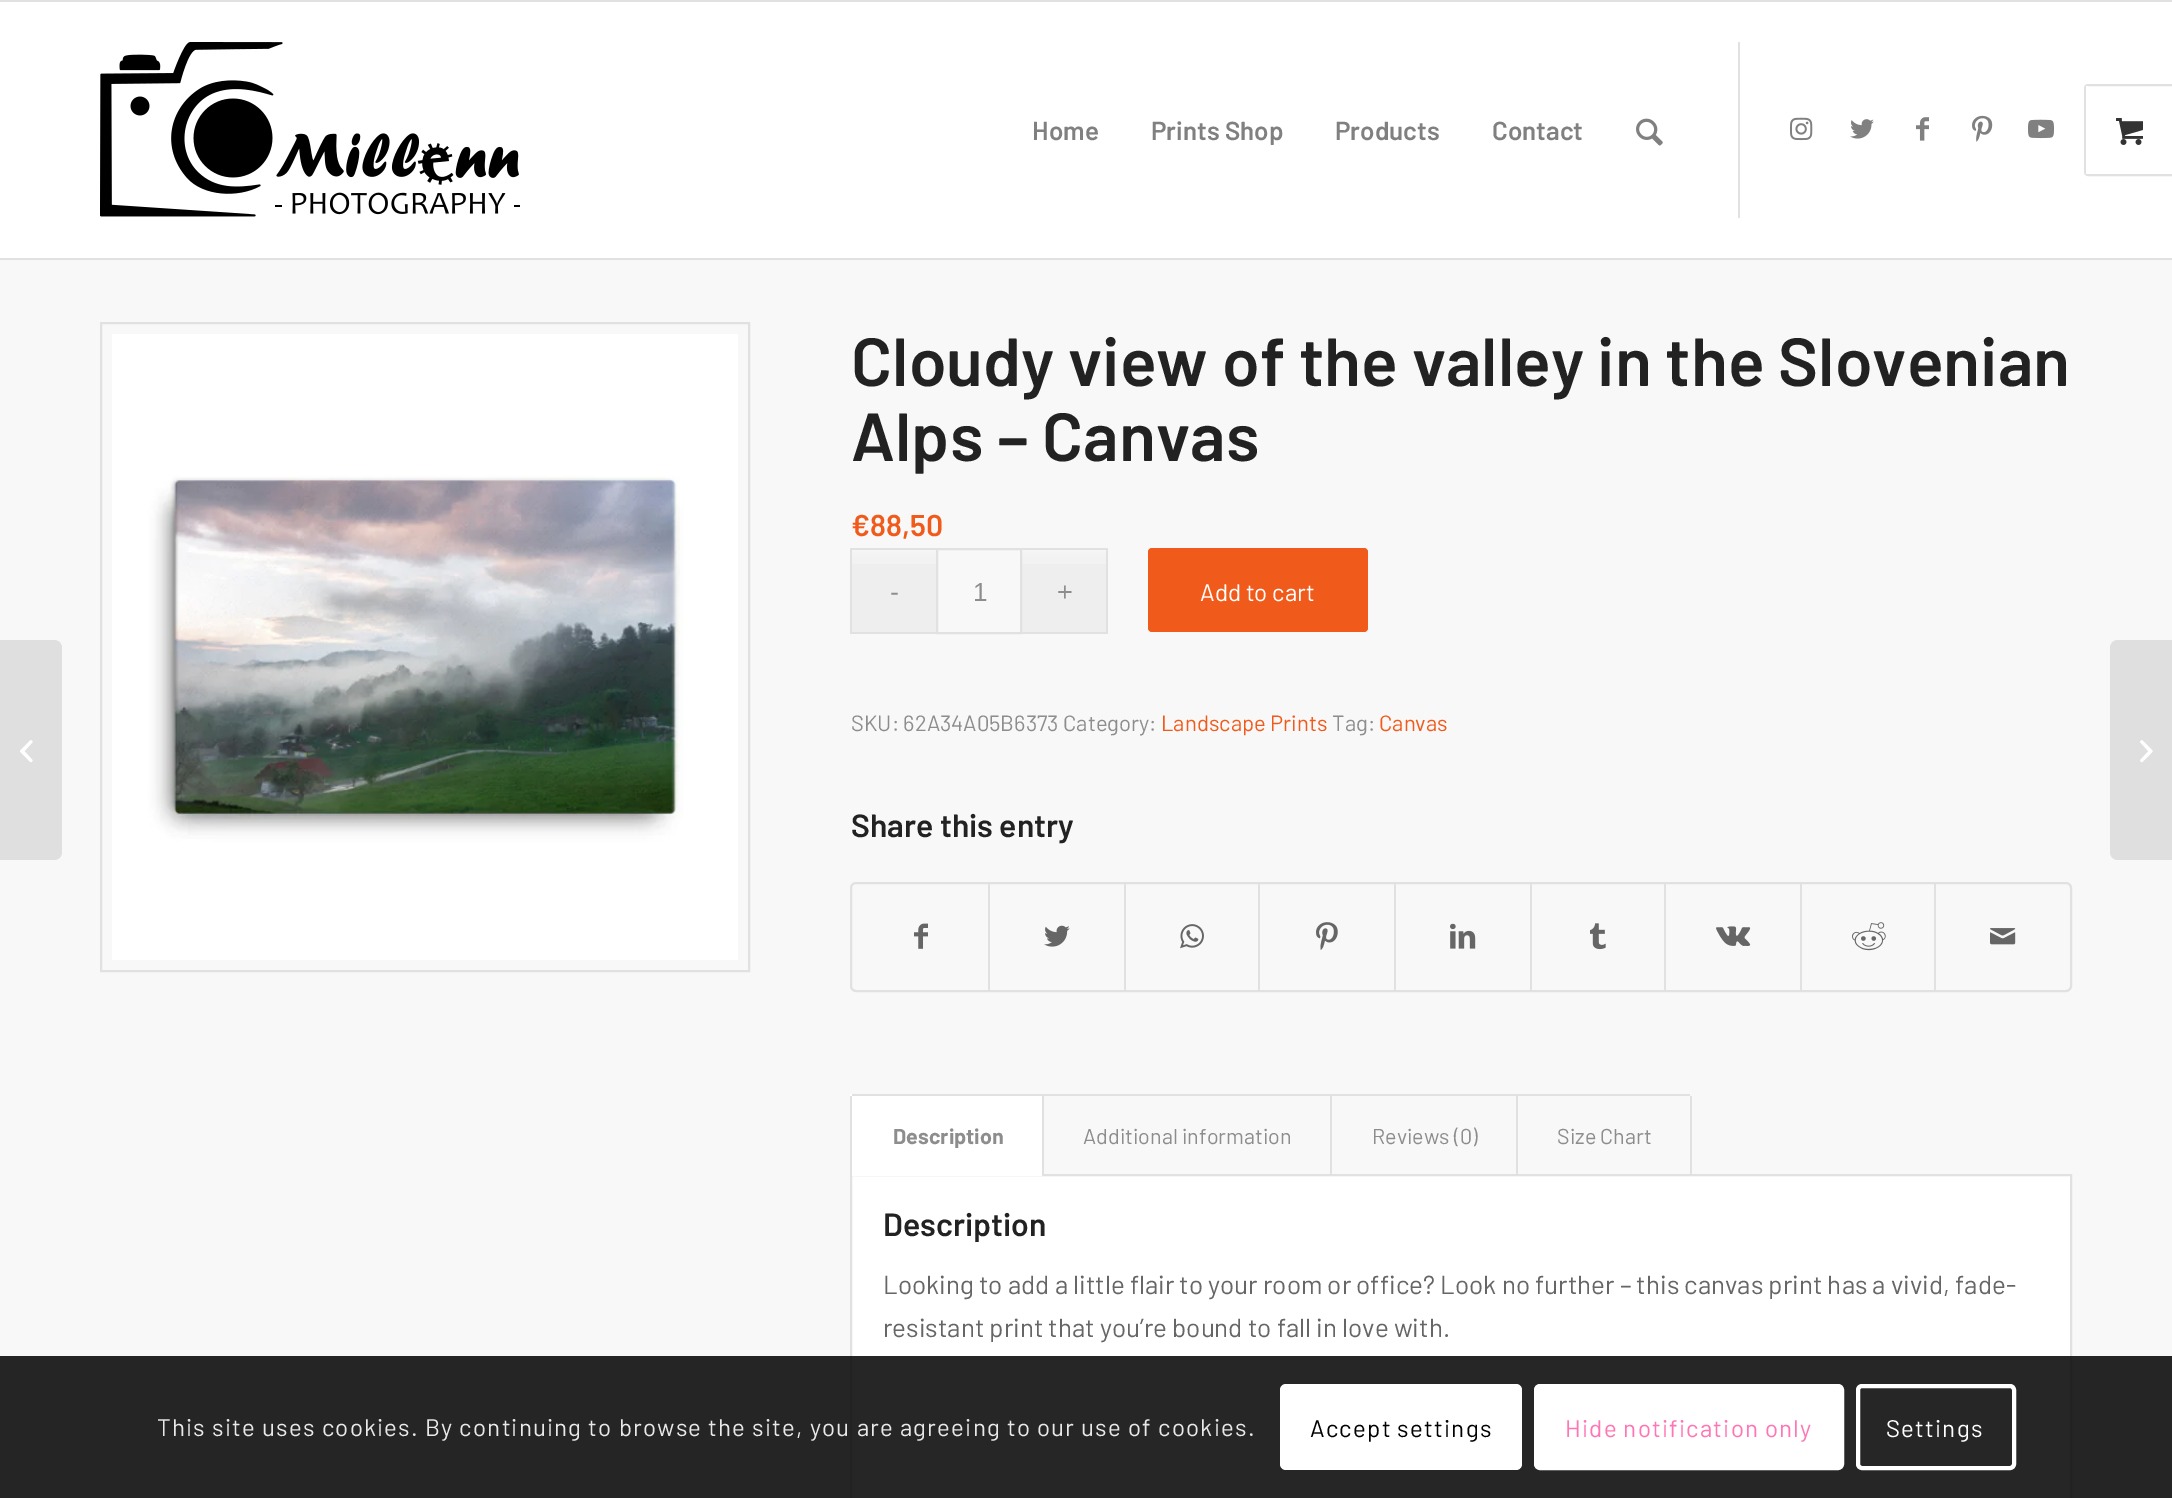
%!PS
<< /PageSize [2172 1498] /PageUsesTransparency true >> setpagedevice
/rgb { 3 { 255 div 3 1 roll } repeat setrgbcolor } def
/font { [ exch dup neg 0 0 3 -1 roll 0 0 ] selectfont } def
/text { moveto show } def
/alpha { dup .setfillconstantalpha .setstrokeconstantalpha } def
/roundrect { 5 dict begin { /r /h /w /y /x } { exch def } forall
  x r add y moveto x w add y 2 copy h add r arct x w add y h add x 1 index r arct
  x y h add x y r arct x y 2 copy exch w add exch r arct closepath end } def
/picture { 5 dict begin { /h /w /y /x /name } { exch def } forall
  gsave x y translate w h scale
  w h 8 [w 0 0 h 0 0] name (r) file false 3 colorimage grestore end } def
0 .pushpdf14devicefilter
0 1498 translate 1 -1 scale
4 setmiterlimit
255 255 255 rgb
0 0 2172 1498 rectfill
225 225 225 rgb
0 0 2172 2 rectfill
0 258 2172 2 rectfill
(img_01.rgb) 100 42 420 175 picture
1738 42 2 176 rectfill
(img_02.rgb) 1636 118 27 28 picture
(img_03.rgb) 1790 117 23 24 picture
(img_04.rgb) 1850 119 24 20 picture
(img_05.rgb) 1916 117 13 24 picture
(img_06.rgb) 1972 115 21 27 picture
(img_07.rgb) 2028 119 26 20 picture
2 setlinewidth
2085 85 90 90 3 roundrect stroke
255 255 255 rgb
2086 86 2 88 rectfill
(img_08.rgb) 2116 118 27 27 picture
248 248 248 rgb
0 260 2172 1238 rectfill
223 223 223 rgb
0 640 moveto 54 0 rlineto 4.5 0 8 3.5 8 8 rcurveto 0 204 rlineto 0 4.5 -3.5 8 -8 8 rcurveto -54 0 rlineto closepath fill
(img_09.rgb) 20 740 13 23 picture
225 225 225 rgb
101 323 648 648 rectstroke
(img_10.rgb) 112 334 626 626 picture
238 238 238 rgb
852 550 84 82 rectfill
(img_11.rgb) 852 550 84 14 picture
1022 550 84 82 rectfill
(img_11.rgb) 1022 550 84 14 picture
225 225 225 rgb
850 548 86 2 rectfill
850 632 86 2 rectfill
850 548 2 86 rectfill
937 549 84 84 rectstroke
1022 548 86 2 rectfill
1106 548 2 86 rectfill
1022 632 86 2 rectfill
240 90 26 rgb
1148 548 220 84 4 roundrect fill
225 225 225 rgb
851 883 1220 108 5 roundrect stroke
(img_12.rgb) 914 923 14 26 picture
988 884 2 106 rectfill
(img_13.rgb) 1044 925 26 22 picture
1124 884 2 106 rectfill
(img_14.rgb) 1180 924 24 25 picture
1258 884 2 106 rectfill
(img_15.rgb) 1316 922 22 28 picture
1394 884 2 106 rectfill
(img_16.rgb) 1450 923 26 26 picture
1530 884 2 106 rectfill
(img_17.rgb) 1590 923 16 27 picture
1664 884 2 106 rectfill
(img_18.rgb) 1716 926 35 20 picture
1800 884 2 106 rectfill
(img_19.rgb) 1852 922 34 29 picture
1934 884 2 106 rectfill
(img_20.rgb) 1990 928 26 17 picture
255 255 255 rgb
851 1175 moveto 1220 0 rlineto 0 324 rlineto -1220 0 rlineto closepath gsave fill grestore
225 225 225 rgb
stroke
255 255 255 rgb
850 1094 192 82 rectfill
225 225 225 rgb
1042 1094 290 2 rectfill
852 1094 192 2 rectfill
1042 1094 2 82 rectfill
850 1096 2 80 rectfill
1330 1094 2 82 rectfill
1330 1094 188 2 rectfill
1516 1094 2 82 rectfill
1516 1094 174 2 rectfill
1690 1096 2 80 rectfill
223 223 223 rgb
2118 640 moveto 54 0 rlineto 0 220 rlineto -54 0 rlineto -4.5 0 -8 -3.5 -8 -8 rcurveto 0 -204 rlineto 0 -4.5 3.5 -8 8 -8 rcurveto closepath fill
(img_21.rgb) 2140 740 13 23 picture
0.85 alpha
0 0 0 rgb
0 1356 2172 142 rectfill
1 alpha
255 255 255 rgb
1280 1384 242 86 6 roundrect fill
1536 1386 306 82 4 roundrect gsave fill grestore
4 setlinewidth
stroke
1858 1386 156 82 4 roundrect stroke
/Barlow-SemiBold 26 font
128 128 128 rgb
(Home) 1032 140 text
(Prints Shop) 1151 140 text
(Products) 1335 140 text
(Contact) 1492 140 text
/Barlow-SemiBold 68 font
34 34 34 rgb
(Cloudy view of the valley in the Slovenian) 851 386 text
(Alps – Canvas) 851 461 text
/Barlow-SemiBold 30 font
240 90 26 rgb
(€88,50) 851 536 text
/LiberationSans-Regular 27 font
141 141 141 rgb
(-) 890 601 text
/LiberationSans-Regular 26 font
(1) 973 601 text
/LiberationSans-Regular 27 font
(+) 1057 601 text
/Barlow-Regular 24 font
255 255 255 rgb
(Add to cart) 1200 601 text
/Barlow-Regular 22 font
141 141 141 rgb
(SKU: 62A34A05B6373 Category:) 851 731 text
240 90 26 rgb
(Landscape Prints) 1161 731 text
141 141 141 rgb
(Tag:) 1332 731 text
240 90 26 rgb
(Canvas) 1379 731 text
/Barlow-SemiBold 32 font
34 34 34 rgb
(Share this entry) 851 837 text
/Barlow-Bold 21.5 font
141 141 141 rgb
(Description) 893 1144 text
/Barlow-Regular 21.5 font
(Additional information) 1083 1144 text
(Reviews \(0\)) 1372 1144 text
(Size Chart) 1557 1144 text
/Barlow-SemiBold 32 font
34 34 34 rgb
(Description) 883 1236 text
/Barlow-Regular 26 font
102 102 102 rgb
(Looking to add a little flair to your room or office? Look no further – this canvas print has a vivid, fade-) 883 1294 text
(resistant print that you’re bound to fall in love with.) 883 1337 text
/Barlow-Regular 24 font
233 233 233 rgb
157 1436 moveto 1.2 0 (This site uses cookies. By continuing to browse the site, you are agreeing to our use of cookies.) ashow
0 0 0 rgb
1310 1437 moveto 1.2 0 (Accept settings) ashow
255 117 181 rgb
1565 1437 moveto 1.2 0 (Hide notification only) ashow
255 255 255 rgb
1886 1437 moveto 1.2 0 (Settings) ashow
.poppdf14devicefilter showpage
